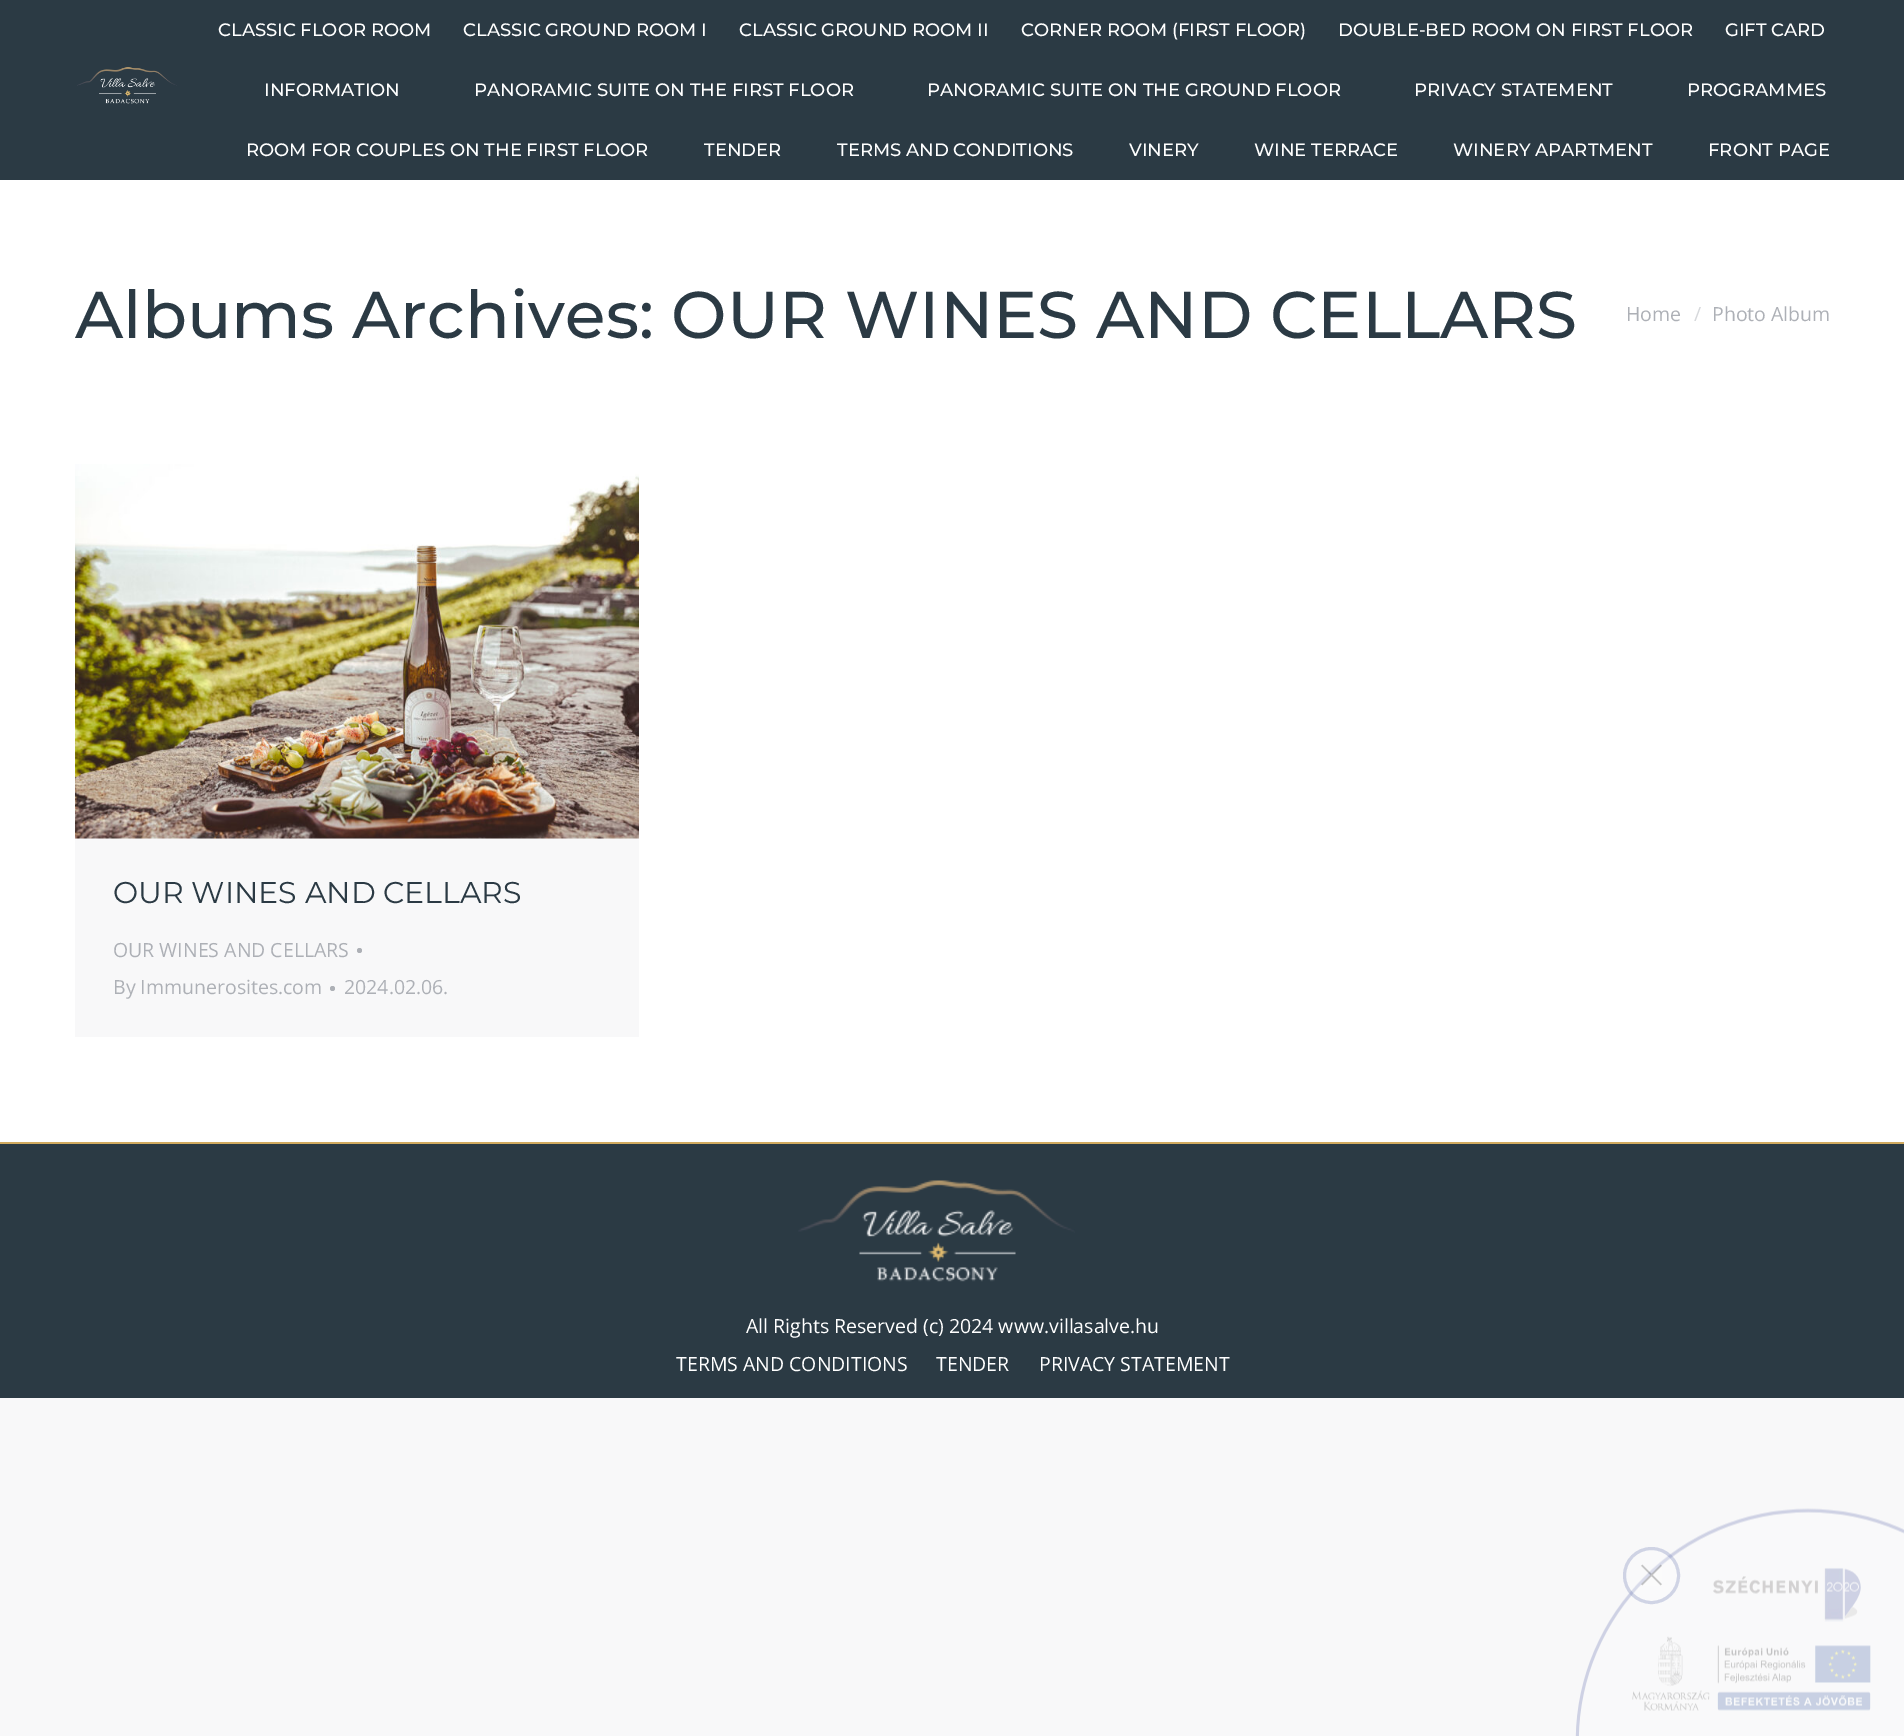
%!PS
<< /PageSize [1904 1736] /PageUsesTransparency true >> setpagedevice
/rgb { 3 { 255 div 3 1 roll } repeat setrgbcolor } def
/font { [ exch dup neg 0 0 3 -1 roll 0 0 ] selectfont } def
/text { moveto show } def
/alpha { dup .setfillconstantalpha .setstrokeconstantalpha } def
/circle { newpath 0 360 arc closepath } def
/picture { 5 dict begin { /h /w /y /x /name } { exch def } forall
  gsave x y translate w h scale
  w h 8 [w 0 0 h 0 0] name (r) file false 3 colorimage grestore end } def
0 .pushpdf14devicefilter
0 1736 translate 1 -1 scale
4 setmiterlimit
248 248 249 rgb
0 0 1904 1736 rectfill
255 255 255 rgb
0 180 1904 962 rectfill
43 58 68 rgb
0 0 1904 180 rectfill
(img_01.rgb) 77 67 100 37 picture
248 248 249 rgb
75 838 564 199 rectfill
(img_02.rgb) 75 464 564 375 picture
173 176 182 rgb
359.5 950.5 2.5 circle fill
332.5 988.5 2.5 circle fill
43 58 68 rgb
0 1144 1904 254 rectfill
208 170 95 rgb
0 1142 1904 2 rectfill
(img_03.rgb) 798 1180 277 102 picture
(img_04.rgb) 1575 1508 329 228 picture
0.21 alpha
255 255 255 rgb
1651.5 1575.5 28.5 circle fill
51 70 148 rgb
3 setlinewidth
1651.5 1575.5 27 circle stroke
1 alpha
(img_05.rgb) 1641 1564 21 22 picture
/Montserrat-Medium 18 font
255 255 255 rgb
(CLASSIC FLOOR ROOM) 218 36 text
(CLASSIC GROUND ROOM I) 463 36 text
(CLASSIC GROUND ROOM II) 739 36 text
(CORNER ROOM \(FIRST FLOOR\)) 1021 36 text
(DOUBLE-BED ROOM ON FIRST FLOOR) 1338 36 text
(GIFT CARD) 1725 36 text
(INFORMATION) 264 96 text
(PANORAMIC SUITE ON THE FIRST FLOOR) 474 96 text
(PANORAMIC SUITE ON THE GROUND FLOOR) 927 96 text
(PRIVACY STATEMENT) 1414 96 text
(PROGRAMMES) 1687 96 text
(ROOM FOR COUPLES ON THE FIRST FLOOR) 246 156 text
(TENDER) 704 156 text
(TERMS AND CONDITIONS) 837 156 text
(VINERY) 1129 156 text
(WINE TERRACE) 1254 156 text
(WINERY APARTMENT) 1453 156 text
(FRONT PAGE) 1708 156 text
/Montserrat-Medium 66 font
43 58 68 rgb
(Albums Archives: OUR WINES AND CELLARS) 75 338 text
/OpenSans-Regular 19.5 font
173 176 182 rgb
(Home) 1626 321 text
214 216 219 rgb
(/) 1694 321 text
173 176 182 rgb
(Photo Album) 1712 321 text
/Montserrat-Thin 30 font
43 58 68 rgb
(OUR WINES AND CELLARS) 113 903 text
/OpenSans-Regular 19.5 font
173 176 182 rgb
(OUR WINES AND CELLARS) 113 957 text
(By Immunerosites.com) 113 994 text
(2024.02.06.) 344 994 text
255 255 255 rgb
(All Rights Reserved \(c\) 2024 www.villasalve.hu) 746 1333 text
(TERMS AND CONDITIONS) 676 1371 text
(TENDER) 936 1371 text
(PRIVACY STATEMENT) 1039 1371 text
.poppdf14devicefilter showpage
